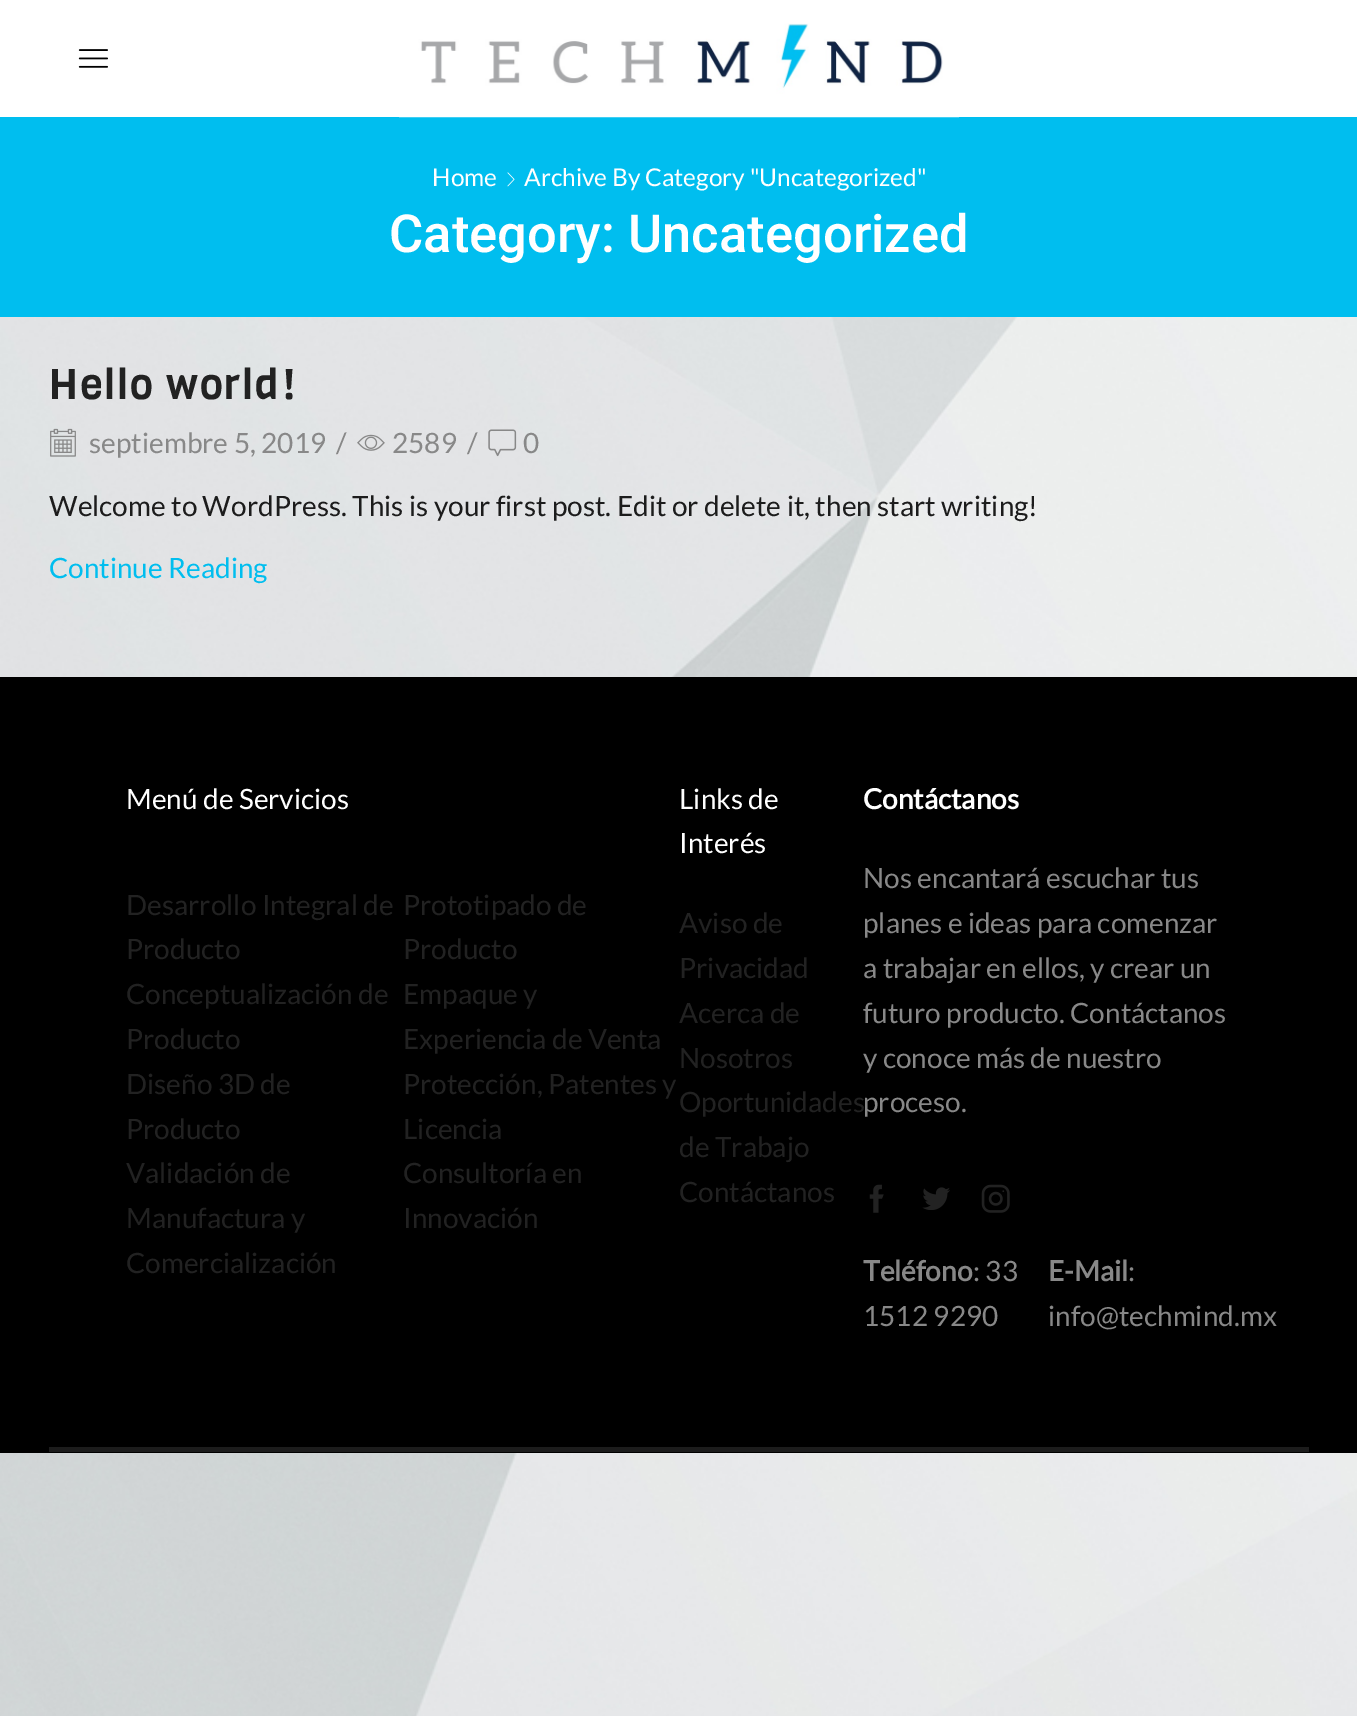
%!PS
<< /PageSize [1357 1716] >> setpagedevice
/rgb { 3 { 255 div 3 1 roll } repeat setrgbcolor } def
/font { [ exch dup neg 0 0 3 -1 roll 0 0 ] selectfont } def
/text { moveto show } def
/picture { 5 dict begin { /h /w /y /x /name } { exch def } forall
  gsave x y translate w h scale
  w h 8 [w 0 0 h 0 0] name (r) file false 3 colorimage grestore end } def
0 1716 translate 1 -1 scale
4 setmiterlimit
255 255 255 rgb
0 0 1357 1716 rectfill
(img_01.rgb) 0 317 1357 1399 picture
(img_02.rgb) 78 49 30 19 picture
0 190 239 rgb
0 117 1357 200 rectfill
(img_03.rgb) 399 23 560 95 picture
(img_04.rgb) 507 172 8 15 picture
(img_05.rgb) 50 428 26 29 picture
(img_06.rgb) 357 434 28 17 picture
(img_07.rgb) 488 429 29 28 picture
0 0 0 rgb
0 677 1357 776 rectfill
(img_08.rgb) 869 1184 15 29 picture
(img_09.rgb) 922 1187 28 23 picture
(img_10.rgb) 981 1184 29 29 picture
28 28 28 rgb
49 1447 1260 5 rectfill
/Lato-Regular 24.5 font
255 255 255 rgb
(Home) 432 186 text
(Archive By Category "Uncategorized") 524 186 text
/Roboto-Medium 52.5 font
(Category: Uncategorized) 389 252 text
/Viga-Regular 42 font
34 34 34 rgb
49 399 moveto 1.75 0 (Hello world!) ashow
/Lato-Regular 28 font
136 136 136 rgb
(septiembre 5, 2019) 89 453 text
(/) 336 453 text
(2589) 392 453 text
(/) 467 453 text
(0) 523 453 text
28 28 28 rgb
(Welcome to WordPress. This is your first post. Edit or delete it, then start writing!) 49 516 text
0 190 239 rgb
(Continue Reading) 49 578 text
255 255 255 rgb
(Menú de Servicios) 126 809 text
34 34 34 rgb
(Desarrollo Integral de) 126 915 text
(Producto) 126 959 text
(Conceptualización de) 126 1004 text
(Producto) 126 1049 text
(Diseño 3D de) 126 1094 text
(Producto) 126 1139 text
(Validación de) 126 1183 text
(Manufactura y) 126 1228 text
(Comercialización) 126 1273 text
(Prototipado de) 403 915 text
(Producto) 403 959 text
(Empaque y) 403 1004 text
(Experiencia de Venta) 403 1049 text
(Protección, Patentes y) 403 1094 text
(Licencia) 403 1139 text
(Consultoría en) 403 1183 text
(Innovación) 403 1228 text
255 255 255 rgb
(Links de) 679 809 text
(Interés) 679 853 text
34 34 34 rgb
(Aviso de) 679 933 text
(Privacidad) 679 978 text
(Acerca de) 679 1023 text
(Nosotros) 679 1068 text
(Oportunidades) 679 1112 text
(de Trabajo) 679 1157 text
(Contáctanos) 679 1202 text
/Lato-Bold 28 font
255 255 255 rgb
(Contáctanos) 863 809 text
/Lato-Regular 28 font
136 136 136 rgb
(Nos encantará escuchar tus) 863 888 text
(planes e ideas para comenzar) 863 933 text
(a trabajar en ellos, y crear un) 863 978 text
(futuro producto. Contáctanos) 863 1023 text
(y conoce más de nuestro) 863 1068 text
(proceso.) 863 1112 text
/Lato-Bold 28 font
(Teléfono) 863 1281 text
/Lato-Regular 28 font
(: 33) 973 1281 text
(1512 9290) 863 1326 text
/Lato-Bold 28 font
(E-Mail) 1048 1281 text
/Lato-Regular 28 font
(:) 1128 1281 text
(info@techmind.mx) 1048 1326 text
showpage
